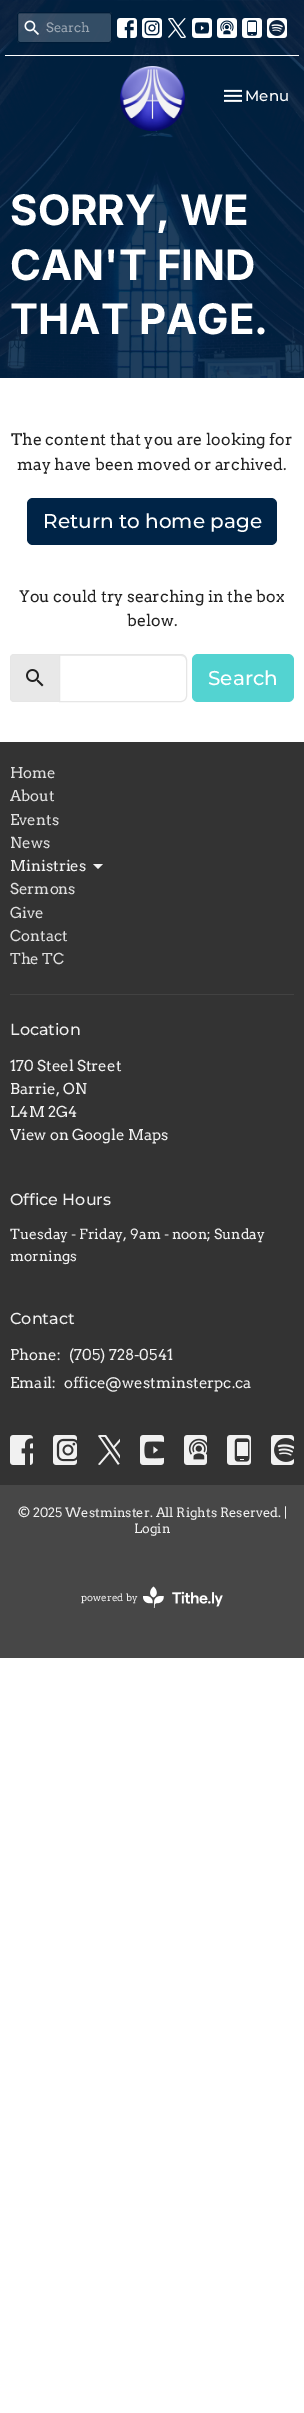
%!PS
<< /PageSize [304 2413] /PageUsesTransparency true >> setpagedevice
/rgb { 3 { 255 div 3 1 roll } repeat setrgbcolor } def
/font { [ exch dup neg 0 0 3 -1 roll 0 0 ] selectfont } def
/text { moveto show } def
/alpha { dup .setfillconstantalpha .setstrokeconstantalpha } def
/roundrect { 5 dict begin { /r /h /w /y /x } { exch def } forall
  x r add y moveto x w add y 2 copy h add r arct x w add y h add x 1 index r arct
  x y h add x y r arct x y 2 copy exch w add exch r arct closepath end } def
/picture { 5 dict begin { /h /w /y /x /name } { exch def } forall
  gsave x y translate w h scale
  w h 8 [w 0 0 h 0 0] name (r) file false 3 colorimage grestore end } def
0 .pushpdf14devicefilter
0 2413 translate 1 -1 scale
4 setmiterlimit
255 255 255 rgb
0 0 304 2413 rectfill
(img_11.rgb) 0 0 304 378 picture
5 55 294 1 rectfill
0.2 alpha
17 12 95 31 3 roundrect fill
0.07 alpha
0 0 0 rgb
20 14 moveto 89 0 rlineto 1 0 2 1 2 2 rcurveto 0 -1 0 -3 -2 -3 rcurveto -74 0 rlineto -2 0 -17 -4 -17 3 rcurveto 0 -1 1 -2 2 -2 rcurveto closepath fill
1 alpha
0 28 56 rgb
17.5 12.5 94 30 2.5 roundrect stroke
(img_01.rgb) 24 20 15 15 picture
(img_02.rgb) 117 18 20 20 picture
(img_03.rgb) 142 18 20 20 picture
(img_04.rgb) 168 18 18 20 picture
(img_05.rgb) 192 18 20 20 picture
(img_06.rgb) 217 18 20 20 picture
(img_07.rgb) 242 18 20 20 picture
(img_08.rgb) 267 18 20 20 picture
(img_09.rgb) 120 66 65 65 picture
(img_10.rgb) 224 89 18 13 picture
0 36 71 rgb
27 498 250 47 6 roundrect fill
232 232 232 rgb
14 654 moveto 45 0 rlineto 0 48 rlineto -45 0 rlineto -2 0 -4 -2 -4 -4 rcurveto 0 -40 rlineto 0 -2 2 -4 4 -4 rcurveto closepath fill
230 230 230 rgb
14 654 moveto 45 0 rlineto 0 48 rlineto -45 0 rlineto -2 0 -4 -2 -4 -4 rcurveto 0 -40 rlineto 0 -2 2 -4 4 -4 rcurveto closepath 14 655 moveto 45 0 rlineto 0 46 rlineto -45 0 rlineto -2 0 -3 -1 -3 -3 rcurveto 0 -40 rlineto 0 -2 1 -3 3 -3 rcurveto closepath eofill
(img_12.rgb) 26 669 18 18 picture
236 236 236 rgb
60 656 moveto 121 0 rlineto 3 0 5 2 5 5 rcurveto 0 -1 rlineto 0 -3 -2 -5 -5 -5 rcurveto -121 0 rlineto closepath fill
230 230 230 rgb
59.5 654.5 moveto 121.5 0 rlineto 3 0 5.5 2.5 5.5 5.5 rcurveto 0 36 rlineto 0 3 -2.5 5.5 -5.5 5.5 rcurveto -121.5 0 rlineto closepath stroke
83 211 209 rgb
192 654 102 48 6 roundrect fill
51 51 51 rgb
0 742 304 743 rectfill
241 241 241 rgb
93 864 moveto 5 5 rlineto 5 -5 rlineto closepath fill
66 66 66 rgb
10 994 284 1 rectfill
(img_13.rgb) 10 1435 23 30 picture
(img_14.rgb) 53 1435 24 30 picture
(img_15.rgb) 98 1435 22 30 picture
(img_16.rgb) 140 1435 24 30 picture
(img_17.rgb) 184 1435 23 30 picture
(img_18.rgb) 227 1435 24 30 picture
(img_19.rgb) 271 1435 23 30 picture
71 71 71 rgb
0 1485 304 173 rectfill
(img_20.rgb) 143 1586 80 22 picture
/Arvo-Regular 13 font
154 166 178 rgb
(Search) 46 32 text
/Montserrat-Medium 15 font
255 255 255 rgb
(Menu) 245 101 text
/Inter-Bold 42 font
(SORRY, WE) 10 225 text
(CAN'T FIND) 10 280 text
(THAT PAGE.) 10 334 text
/Arvo-Regular 16 font
34 34 34 rgb
(The content that you are looking for) 11 445 text
(may have been moved or archived.) 17 470 text
/Montserrat-Medium 20 font
255 255 255 rgb
(Return to home page) 43 528 text
/Arvo-Regular 16 font
34 34 34 rgb
(You could try searching in the box) 19 602 text
(below.) 127 626 text
/Montserrat-Medium 20 font
255 255 255 rgb
(Search) 208 685 text
/Arvo-Regular 15 font
222 222 222 rgb
(Home) 10 778 text
(About) 10 801 text
(Events) 10 825 text
(News) 10 848 text
241 241 241 rgb
(Ministries) 10 871 text
222 222 222 rgb
(Sermons) 10 894 text
(Give) 10 918 text
(Contact) 10 941 text
(The TC) 10 964 text
/Montserrat-Medium 16 font
241 241 241 rgb
(Location) 10 1035 text
/Arvo-Regular 15 font
(170 Steel Street) 10 1071 text
(Barrie, ON) 10 1094 text
(L4M 2G4) 10 1117 text
(View on Google Maps) 10 1140 text
/Montserrat-Medium 16 font
(Office Hours) 10 1205 text
/Arvo-Regular 14 font
(Tuesday - Friday, 9am - noon; Sunday) 10 1239 text
(mornings) 10 1261 text
/Montserrat-Medium 16 font
(Contact) 10 1324 text
/Arvo-Regular 15 font
(Phone:) 10 1360 text
(\(705\) 728-0541) 69 1360 text
(Email:) 10 1388 text
(office@westminsterpc.ca) 64 1388 text
/Arvo-Regular 12.9 font
(© 2025 Westminster. All Rights Reserved. |) 18 1517 text
(Login) 134 1533 text
/Arvo-Regular 10 font
(powered by) 81 1601 text
.poppdf14devicefilter showpage
